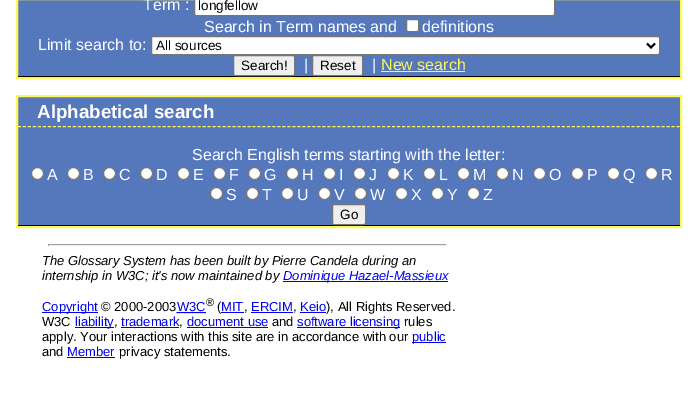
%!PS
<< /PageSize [694 401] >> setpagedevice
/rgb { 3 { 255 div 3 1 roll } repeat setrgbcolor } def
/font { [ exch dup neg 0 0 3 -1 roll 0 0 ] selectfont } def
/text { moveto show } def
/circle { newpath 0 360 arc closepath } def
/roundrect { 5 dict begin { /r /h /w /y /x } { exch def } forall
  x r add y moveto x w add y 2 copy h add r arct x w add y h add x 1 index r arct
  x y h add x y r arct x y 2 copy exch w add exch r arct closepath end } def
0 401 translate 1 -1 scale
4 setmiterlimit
255 255 255 rgb
0 0 694 401 rectfill
85 119 187 rgb
18 0 662 76 rectfill
255 246 89 rgb
2 setlinewidth
17 -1 664 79 rectstroke
0 0 0 rgb
18 76 662 1 rectfill
255 255 255 rgb
194.5 -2.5 360 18 1.5 roundrect gsave fill grestore
118 118 118 rgb
1 setlinewidth
stroke
255 255 255 rgb
406.5 19.5 12 12 1.5 roundrect gsave fill grestore
118 118 118 rgb
stroke
255 255 255 rgb
151.5 36.5 508 18 1.5 roundrect gsave fill grestore
118 118 118 rgb
stroke
0 0 0 rgb
2 setlinewidth
647 43.5 moveto 4 4 rlineto 4 -4 rlineto stroke
239 239 239 rgb
233.5 55.5 61 20 1.5 roundrect gsave fill grestore
118 118 118 rgb
1 setlinewidth
stroke
239 239 239 rgb
312.5 55.5 50 20 1.5 roundrect gsave fill grestore
118 118 118 rgb
stroke
255 246 89 rgb
381 71 84 1 rectfill
85 119 187 rgb
18 97 662 128 rectfill
255 246 89 rgb
2 setlinewidth
17 96 664 131 rectstroke
1 setlinewidth
[3 1.99] 0 setdash
18 126.5 moveto 662 0 rlineto stroke
0 0 0 rgb
18 225 662 1 rectfill
255 255 255 rgb
37.5 173.5 6 circle gsave fill grestore
118 118 118 rgb
[] 0 setdash
stroke
255 255 255 rgb
73.5 173.5 6 circle gsave fill grestore
118 118 118 rgb
stroke
255 255 255 rgb
109.5 173.5 6 circle gsave fill grestore
118 118 118 rgb
stroke
255 255 255 rgb
146.5 173.5 6 circle gsave fill grestore
118 118 118 rgb
stroke
255 255 255 rgb
183.5 173.5 6 circle gsave fill grestore
118 118 118 rgb
stroke
255 255 255 rgb
219.5 173.5 6 circle gsave fill grestore
118 118 118 rgb
stroke
255 255 255 rgb
254.5 173.5 6 circle gsave fill grestore
118 118 118 rgb
stroke
255 255 255 rgb
292.5 173.5 6 circle gsave fill grestore
118 118 118 rgb
stroke
255 255 255 rgb
329.5 173.5 6 circle gsave fill grestore
118 118 118 rgb
stroke
255 255 255 rgb
359.5 173.5 6 circle gsave fill grestore
118 118 118 rgb
stroke
255 255 255 rgb
393.5 173.5 6 circle gsave fill grestore
118 118 118 rgb
stroke
255 255 255 rgb
429.5 173.5 6 circle gsave fill grestore
118 118 118 rgb
stroke
255 255 255 rgb
463.5 173.5 6 circle gsave fill grestore
118 118 118 rgb
stroke
255 255 255 rgb
502.5 173.5 6 circle gsave fill grestore
118 118 118 rgb
stroke
255 255 255 rgb
539.5 173.5 6 circle gsave fill grestore
118 118 118 rgb
stroke
255 255 255 rgb
577.5 173.5 6 circle gsave fill grestore
118 118 118 rgb
stroke
255 255 255 rgb
613.5 173.5 6 circle gsave fill grestore
118 118 118 rgb
stroke
255 255 255 rgb
651.5 173.5 6 circle gsave fill grestore
118 118 118 rgb
stroke
255 255 255 rgb
216.5 193.5 6 circle gsave fill grestore
118 118 118 rgb
stroke
255 255 255 rgb
252.5 193.5 6 circle gsave fill grestore
118 118 118 rgb
stroke
255 255 255 rgb
287.5 193.5 6 circle gsave fill grestore
118 118 118 rgb
stroke
255 255 255 rgb
324.5 193.5 6 circle gsave fill grestore
118 118 118 rgb
stroke
255 255 255 rgb
360.5 193.5 6 circle gsave fill grestore
118 118 118 rgb
stroke
255 255 255 rgb
401.5 193.5 6 circle gsave fill grestore
118 118 118 rgb
stroke
255 255 255 rgb
437.5 193.5 6 circle gsave fill grestore
118 118 118 rgb
stroke
255 255 255 rgb
473.5 193.5 6 circle gsave fill grestore
118 118 118 rgb
stroke
239 239 239 rgb
332.5 204.5 33 20 1.5 roundrect gsave fill grestore
118 118 118 rgb
stroke
159 159 159 rgb
48 244 399 1 rectfill
238 238 238 rgb
446 244 1 2 rectfill
48 245 399 1 rectfill
159 159 159 rgb
48 244 1 2 rectfill
0 0 238 rgb
283 281 165 1 rectfill
42 312 56 1 rectfill
[1 1] 0 setdash
176.5 312.5 moveto 29 0 rlineto stroke
177 312 29 1 rectfill
251 312 42 1 rectfill
300 312 26 1 rectfill
75 327 39 1 rectfill
121 327 58 1 rectfill
187 327 81 1 rectfill
297 327 103 1 rectfill
412 342 34 1 rectfill
67 357 48 1 rectfill
/LiberationSans-Regular 16 font
255 255 255 rgb
(Term :) 143 10 text
/LiberationSans-Regular 13.5 font
0 0 0 rgb
(longfellow) 198 10 text
/LiberationSans-Regular 16 font
255 255 255 rgb
(Search in Term names and) 204 32 text
(definitions) 422 32 text
(Limit search to:) 38 50 text
/LiberationSans-Regular 13.5 font
0 0 0 rgb
(All sources) 156 50 text
(Search!) 241 70 text
/LiberationSans-Regular 16 font
255 255 255 rgb
(|) 304 70 text
/LiberationSans-Regular 13.5 font
0 0 0 rgb
(Reset) 320 70 text
/LiberationSans-Regular 16 font
255 255 255 rgb
(|) 372 70 text
255 246 89 rgb
(New search) 381 70 text
/LiberationSans-Bold 18.75 font
255 255 255 rgb
(Alphabetical search) 37 118 text
/LiberationSans-Regular 16 font
(Search English terms starting with the letter:) 192 160 text
(A) 47 180 text
(B) 83 180 text
(C) 119 180 text
(D) 156 180 text
(E) 193 180 text
(F) 229 180 text
(G) 264 180 text
(H) 302 180 text
(I) 339 180 text
(J) 369 180 text
(K) 403 180 text
(L) 439 180 text
(M) 473 180 text
(N) 512 180 text
(O) 549 180 text
(P) 587 180 text
(Q) 623 180 text
(R) 661 180 text
(S) 226 200 text
(T) 262 200 text
(U) 297 200 text
(V) 334 200 text
(W) 370 200 text
(X) 411 200 text
(Y) 447 200 text
(Z) 483 200 text
/LiberationSans-Regular 13.5 font
0 0 0 rgb
(Go) 340 219 text
/LiberationSans-Italic 13 font
(The Glossary System has been built by Pierre Candela during an) 42 265 text
(internship in W3C; it's now maintained by) 42 280 text
0 0 238 rgb
(Dominique Hazael-Massieux) 283 280 text
/LiberationSans-Regular 13 font
(Copyright) 42 311 text
0 0 0 rgb
(© 2000-2003) 101 311 text
0 0 238 rgb
(W3C) 177 311 text
/LiberationSans-Regular 11 font
0 0 0 rgb
(®) 206 306 text
/LiberationSans-Regular 13 font
(\() 217 311 text
0 0 238 rgb
(MIT) 221 311 text
221 312 23 1 rectfill
0 0 0 rgb
(,) 244 311 text
0 0 238 rgb
(ERCIM) 251 311 text
0 0 0 rgb
(,) 293 311 text
0 0 238 rgb
(Keio) 300 311 text
0 0 0 rgb
(\), All Rights Reserved.) 326 311 text
(W3C) 42 326 text
0 0 238 rgb
(liability) 75 326 text
0 0 0 rgb
(,) 114 326 text
0 0 238 rgb
(trademark) 121 326 text
0 0 0 rgb
(,) 179 326 text
0 0 238 rgb
(document use) 187 326 text
0 0 0 rgb
(and) 272 326 text
0 0 238 rgb
(software licensing) 297 326 text
0 0 0 rgb
(rules) 404 326 text
(apply. Your interactions with this site are in accordance with our) 42 341 text
0 0 238 rgb
(public) 412 341 text
0 0 0 rgb
(and) 42 356 text
0 0 238 rgb
(Member) 67 356 text
0 0 0 rgb
(privacy statements.) 119 356 text
showpage
